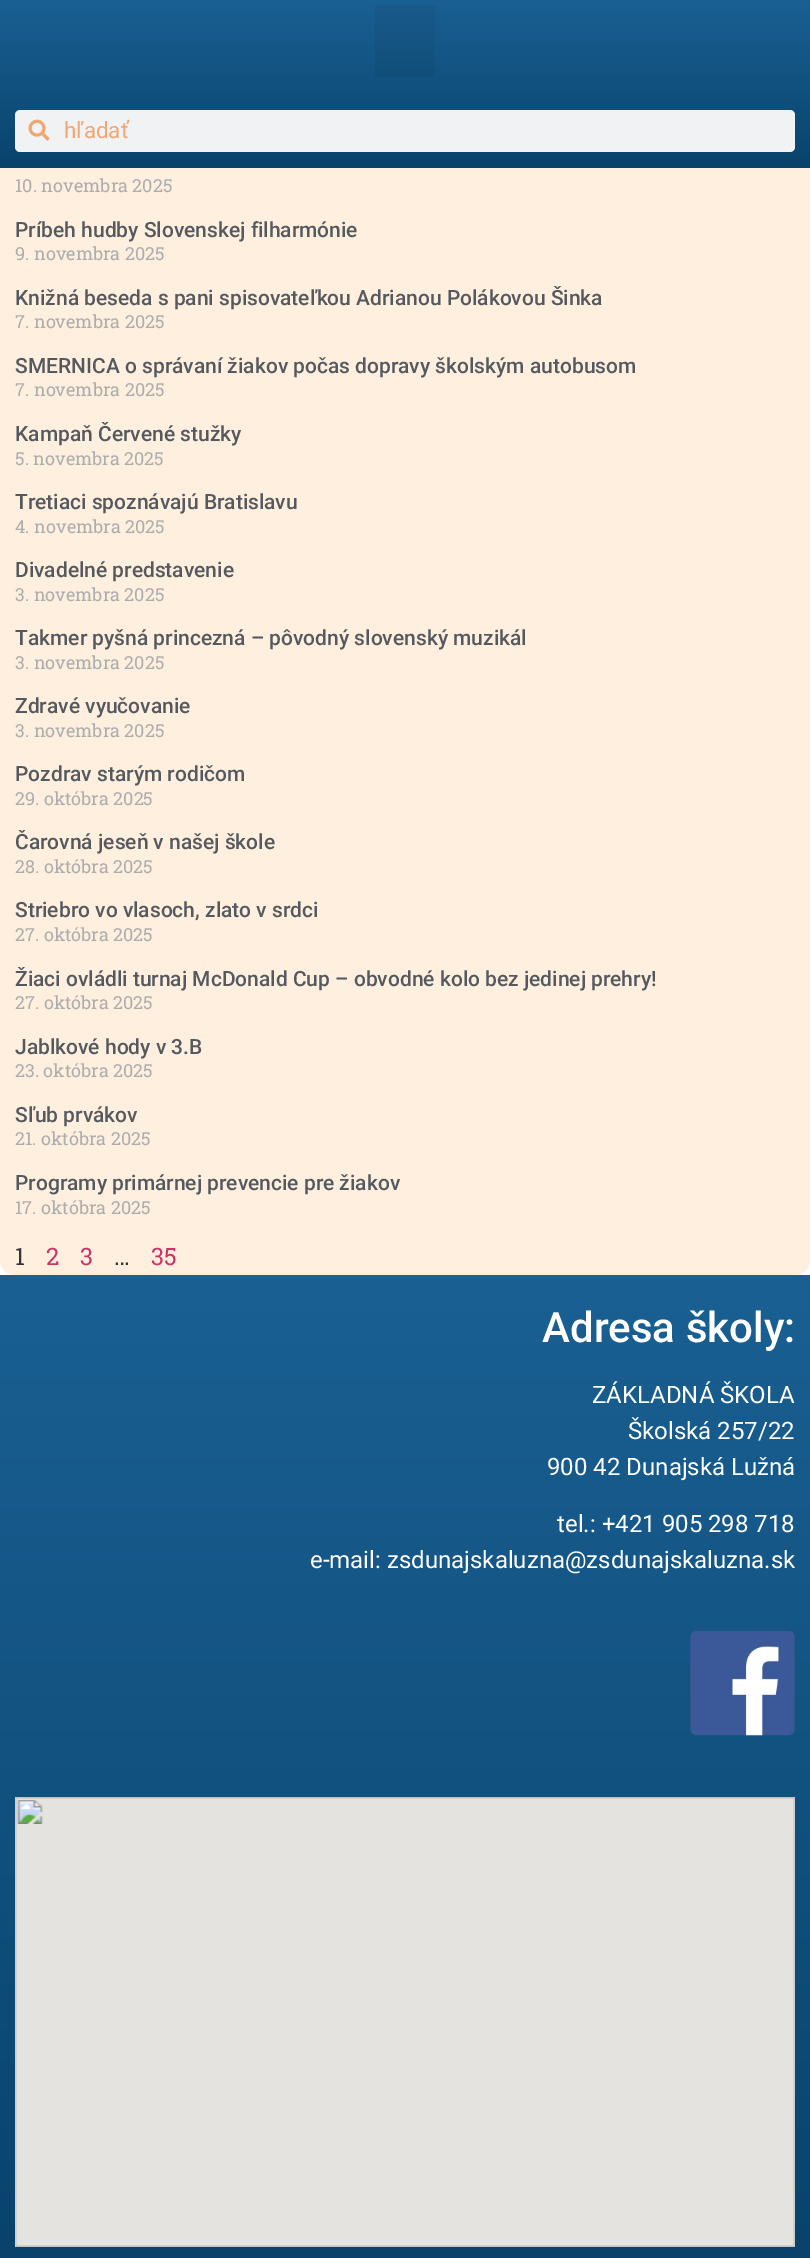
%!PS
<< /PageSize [810 2258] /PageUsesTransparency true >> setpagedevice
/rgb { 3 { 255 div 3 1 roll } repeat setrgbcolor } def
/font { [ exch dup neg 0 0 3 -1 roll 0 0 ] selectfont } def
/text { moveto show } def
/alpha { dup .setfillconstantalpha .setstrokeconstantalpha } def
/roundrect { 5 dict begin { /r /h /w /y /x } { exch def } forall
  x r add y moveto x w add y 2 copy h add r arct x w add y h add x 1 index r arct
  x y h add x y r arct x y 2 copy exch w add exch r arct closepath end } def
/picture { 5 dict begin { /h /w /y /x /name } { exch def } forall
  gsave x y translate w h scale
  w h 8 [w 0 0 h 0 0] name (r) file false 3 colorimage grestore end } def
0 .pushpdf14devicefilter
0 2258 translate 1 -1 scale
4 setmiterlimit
255 255 255 rgb
0 0 810 2258 rectfill
255 239 223 rgb
0 -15 810 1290 15 roundrect fill
gsave 0 0 moveto 810 0 rlineto 0 168 rlineto -810 0 rlineto closepath clip newpath
<< /ShadingType 2 /ColorSpace /DeviceRGB /Coords [405 0 405 168] /Extend [true true] /Function << /FunctionType 2 /Domain [0 1] /C0 [0.102 0.376 0.576] /C1 [0.035 0.263 0.424] /N 1 >> >> shfill grestore
0.05 alpha
0 0 0 rgb
375 5 60 72 rectfill
1 alpha
241 242 243 rgb
15 110 780 42 5 roundrect fill
(img_01.rgb) 28 119 22 22 picture
gsave 0 1275 moveto 810 0 rlineto 0 983 rlineto -810 0 rlineto closepath clip newpath
<< /ShadingType 2 /ColorSpace /DeviceRGB /Coords [405 1275 405 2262] /Extend [true true] /Function << /FunctionType 2 /Domain [0 1] /C0 [0.102 0.376 0.576] /C1 [0.035 0.263 0.424] /N 1 >> >> shfill grestore
(img_02.rgb) 690 1630 105 106 picture
(img_03.rgb) 15 1797 780 450 picture
/Roboto-Regular 22.5 font
240 167 116 rgb
(hľadať) 64 138 text
/RobotoSlab-Regular 18 font
173 173 173 rgb
(10. novembra 2025) 15 192 text
/Roboto-Medium 21 font
84 89 95 rgb
(Príbeh hudby Slovenskej filharmónie) 15 237 text
/RobotoSlab-Regular 18 font
173 173 173 rgb
(9. novembra 2025) 15 260 text
/Roboto-Medium 21 font
84 89 95 rgb
(Knižná beseda s pani spisovateľkou Adrianou Polákovou Šinka) 15 305 text
/RobotoSlab-Regular 18 font
173 173 173 rgb
(7. novembra 2025) 15 328 text
/Roboto-Medium 21 font
84 89 95 rgb
(SMERNICA o správaní žiakov počas dopravy školským autobusom) 15 373 text
/RobotoSlab-Regular 18 font
173 173 173 rgb
(7. novembra 2025) 15 396 text
gsave
15 422 795 67 rectclip
/Roboto-Medium 21 font
84 89 95 rgb
(Kampaň Červené stužky) 15 441 text
grestore
(5. novembra 2025) 15 465 text
/Roboto-Medium 21 font
84 89 95 rgb
(Tretiaci spoznávajú Bratislavu) 15 509 text
/RobotoSlab-Regular 18 font
173 173 173 rgb
(4. novembra 2025) 15 533 text
/Roboto-Medium 21 font
84 89 95 rgb
(Divadelné predstavenie) 15 577 text
/RobotoSlab-Regular 18 font
173 173 173 rgb
(3. novembra 2025) 15 601 text
/Roboto-Medium 21 font
84 89 95 rgb
(Takmer pyšná princezná – pôvodný slovenský muzikál) 15 645 text
/RobotoSlab-Regular 18 font
173 173 173 rgb
(3. novembra 2025) 15 669 text
/Roboto-Medium 21 font
84 89 95 rgb
(Zdravé vyučovanie) 15 713 text
/RobotoSlab-Regular 18 font
173 173 173 rgb
(3. novembra 2025) 15 737 text
/Roboto-Medium 21 font
84 89 95 rgb
(Pozdrav starým rodičom) 15 781 text
/RobotoSlab-Regular 18 font
173 173 173 rgb
(29. októbra 2025) 15 805 text
gsave
15 830 795 69 rectclip
/Roboto-Medium 21 font
84 89 95 rgb
(Čarovná jeseň v našej škole) 15 849 text
grestore
(28. októbra 2025) 15 873 text
/Roboto-Medium 21 font
84 89 95 rgb
(Striebro vo vlasoch, zlato v srdci) 15 917 text
/RobotoSlab-Regular 18 font
173 173 173 rgb
(27. októbra 2025) 15 941 text
/Roboto-Medium 21 font
84 89 95 rgb
(Žiaci ovládli turnaj McDonald Cup – obvodné kolo bez jedinej prehry!) 15 986 text
/RobotoSlab-Regular 18 font
173 173 173 rgb
(27. októbra 2025) 15 1009 text
/Roboto-Medium 21 font
84 89 95 rgb
(Jablkové hody v 3.B) 15 1054 text
/RobotoSlab-Regular 18 font
173 173 173 rgb
(23. októbra 2025) 15 1077 text
/Roboto-Medium 21 font
84 89 95 rgb
(Sľub prvákov) 15 1122 text
/RobotoSlab-Regular 18 font
173 173 173 rgb
(21. októbra 2025) 15 1145 text
/Roboto-Medium 21 font
84 89 95 rgb
(Programy primárnej prevencie pre žiakov) 15 1190 text
/RobotoSlab-Regular 18 font
173 173 173 rgb
(17. októbra 2025) 15 1214 text
/RobotoSlab-Regular 24 font
51 51 51 rgb
(1) 15 1265 text
204 51 102 rgb
(2) 46 1265 text
(3) 80 1265 text
51 51 51 rgb
(…) 114 1265 text
204 51 102 rgb
(35) 151 1265 text
/Roboto-Medium 42 font
255 255 255 rgb
(Adresa školy:) 542 1342 text
/Roboto-Regular 24 font
(ZÁKLADNÁ ŠKOLA) 592 1403 text
(Školská 257/22) 628 1439 text
(900 42 Dunajská Lužná) 547 1475 text
(tel.: +421 905 298 718) 557 1532 text
(e-mail: zsdunajskaluzna@zsdunajskaluzna.sk) 310 1568 text
.poppdf14devicefilter showpage
